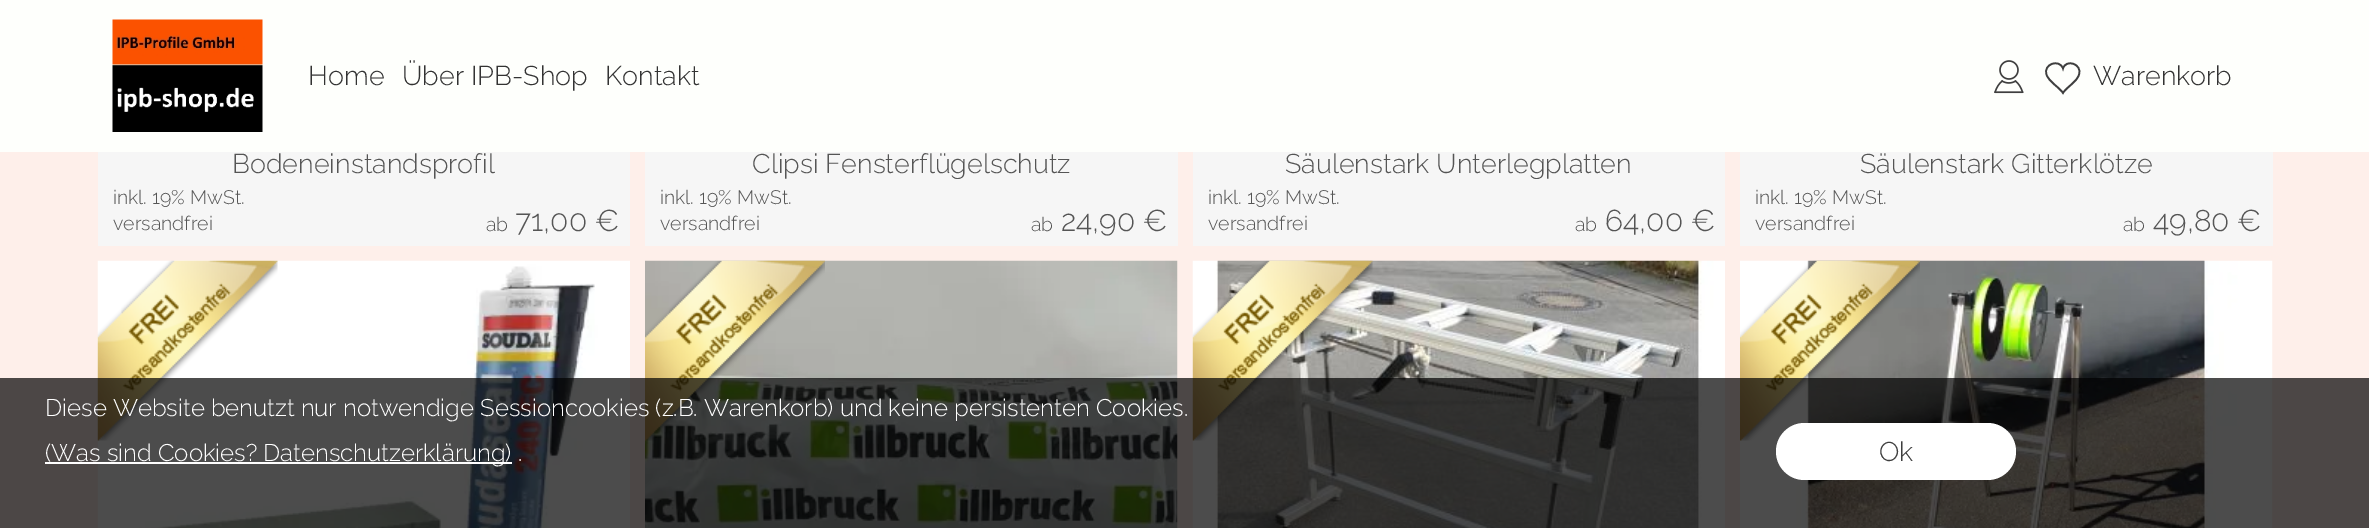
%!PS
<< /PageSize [2369 528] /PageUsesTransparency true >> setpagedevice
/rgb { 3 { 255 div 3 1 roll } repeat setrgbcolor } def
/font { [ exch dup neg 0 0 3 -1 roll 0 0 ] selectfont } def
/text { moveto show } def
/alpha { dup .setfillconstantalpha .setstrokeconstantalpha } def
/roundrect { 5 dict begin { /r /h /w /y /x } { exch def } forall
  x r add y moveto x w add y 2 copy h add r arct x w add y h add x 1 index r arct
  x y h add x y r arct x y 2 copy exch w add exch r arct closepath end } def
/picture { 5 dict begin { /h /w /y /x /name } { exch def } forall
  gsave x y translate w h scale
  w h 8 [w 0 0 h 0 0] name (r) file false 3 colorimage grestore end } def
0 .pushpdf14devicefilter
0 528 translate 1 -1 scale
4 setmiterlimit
254 239 234 rgb
0 0 2369 528 rectfill
254 255 252 rgb
0 0 2369 152 rectfill
(img_01.rgb) 112 19 151 113 picture
(img_02.rgb) 1994 60 30 34 picture
63 63 63 rgb
1.7 setlinewidth
2063 93 moveto -4.5 -6.5 -14 -11 -16.5 -18.5 rcurveto -3.5 -10.5 13 -16 16.5 -6 rcurveto 3 -10 19.5 -4.5 16 6 rcurveto -2 7.5 -12 12 -16 18.5 rcurveto closepath stroke
246 246 246 rgb
98 152 532 94 rectfill
645 152 533 94 rectfill
1193 152 532 94 rectfill
1740 152 533 94 rectfill
(img_03.rgb) 97 260 533 268 picture
(img_04.rgb) 97 260 181 181 picture
(img_05.rgb) 645 260 533 268 picture
(img_06.rgb) 645 260 180 181 picture
(img_07.rgb) 1192 260 533 268 picture
(img_08.rgb) 1192 260 181 181 picture
(img_09.rgb) 1740 260 533 268 picture
(img_10.rgb) 1740 260 180 181 picture
0.7 alpha
0 0 0 rgb
0 378 2369 150 rectfill
1 alpha
255 255 255 rgb
45 462 467 2 rectfill
1776 423 240 57 28.5 roundrect fill
/Raleway-Light 27 font
51 51 51 rgb
(Home) 308 85 text
(Über IPB-Shop) 402 85 text
(Kontakt) 605 85 text
(Warenkorb) 2093 85 text
85 85 85 rgb
(Bodeneinstandsprofil) 232 173 text
/Raleway-Light 19.5 font
(inkl. 19% MwSt.) 113 204 text
(versandfrei) 113 230 text
(ab) 486 231 text
/Raleway-Light 30 font
(71,00 €) 515 231 text
/Raleway-Light 27 font
(Clipsi Fensterflügelschutz) 752 173 text
/Raleway-Light 19.5 font
(inkl. 19% MwSt.) 660 204 text
(versandfrei) 660 230 text
(ab) 1031 231 text
/Raleway-Light 30 font
(24,90 €) 1061 231 text
/Raleway-Light 27 font
(Säulenstark Unterlegplatten) 1285 173 text
/Raleway-Light 19.5 font
(inkl. 19% MwSt.) 1208 204 text
(versandfrei) 1208 230 text
(ab) 1575 231 text
/Raleway-Light 30 font
(64,00 €) 1605 231 text
/Raleway-Light 27 font
(Säulenstark Gitterklötze) 1860 173 text
/Raleway-Light 19.5 font
(inkl. 19% MwSt.) 1755 204 text
(versandfrei) 1755 230 text
(ab) 2123 231 text
/Raleway-Light 30 font
(49,80 €) 2153 231 text
/Raleway-Light 24 font
255 255 255 rgb
(Diese Website benutzt nur notwendige Sessioncookies \(z.B. Warenkorb\) und keine persistenten Cookies.) 45 416 text
(\(Was sind Cookies? Datenschutzerklärung\) .) 45 461 text
/Raleway-Light 27 font
62 62 62 rgb
(Ok) 1879 461 text
.poppdf14devicefilter showpage
